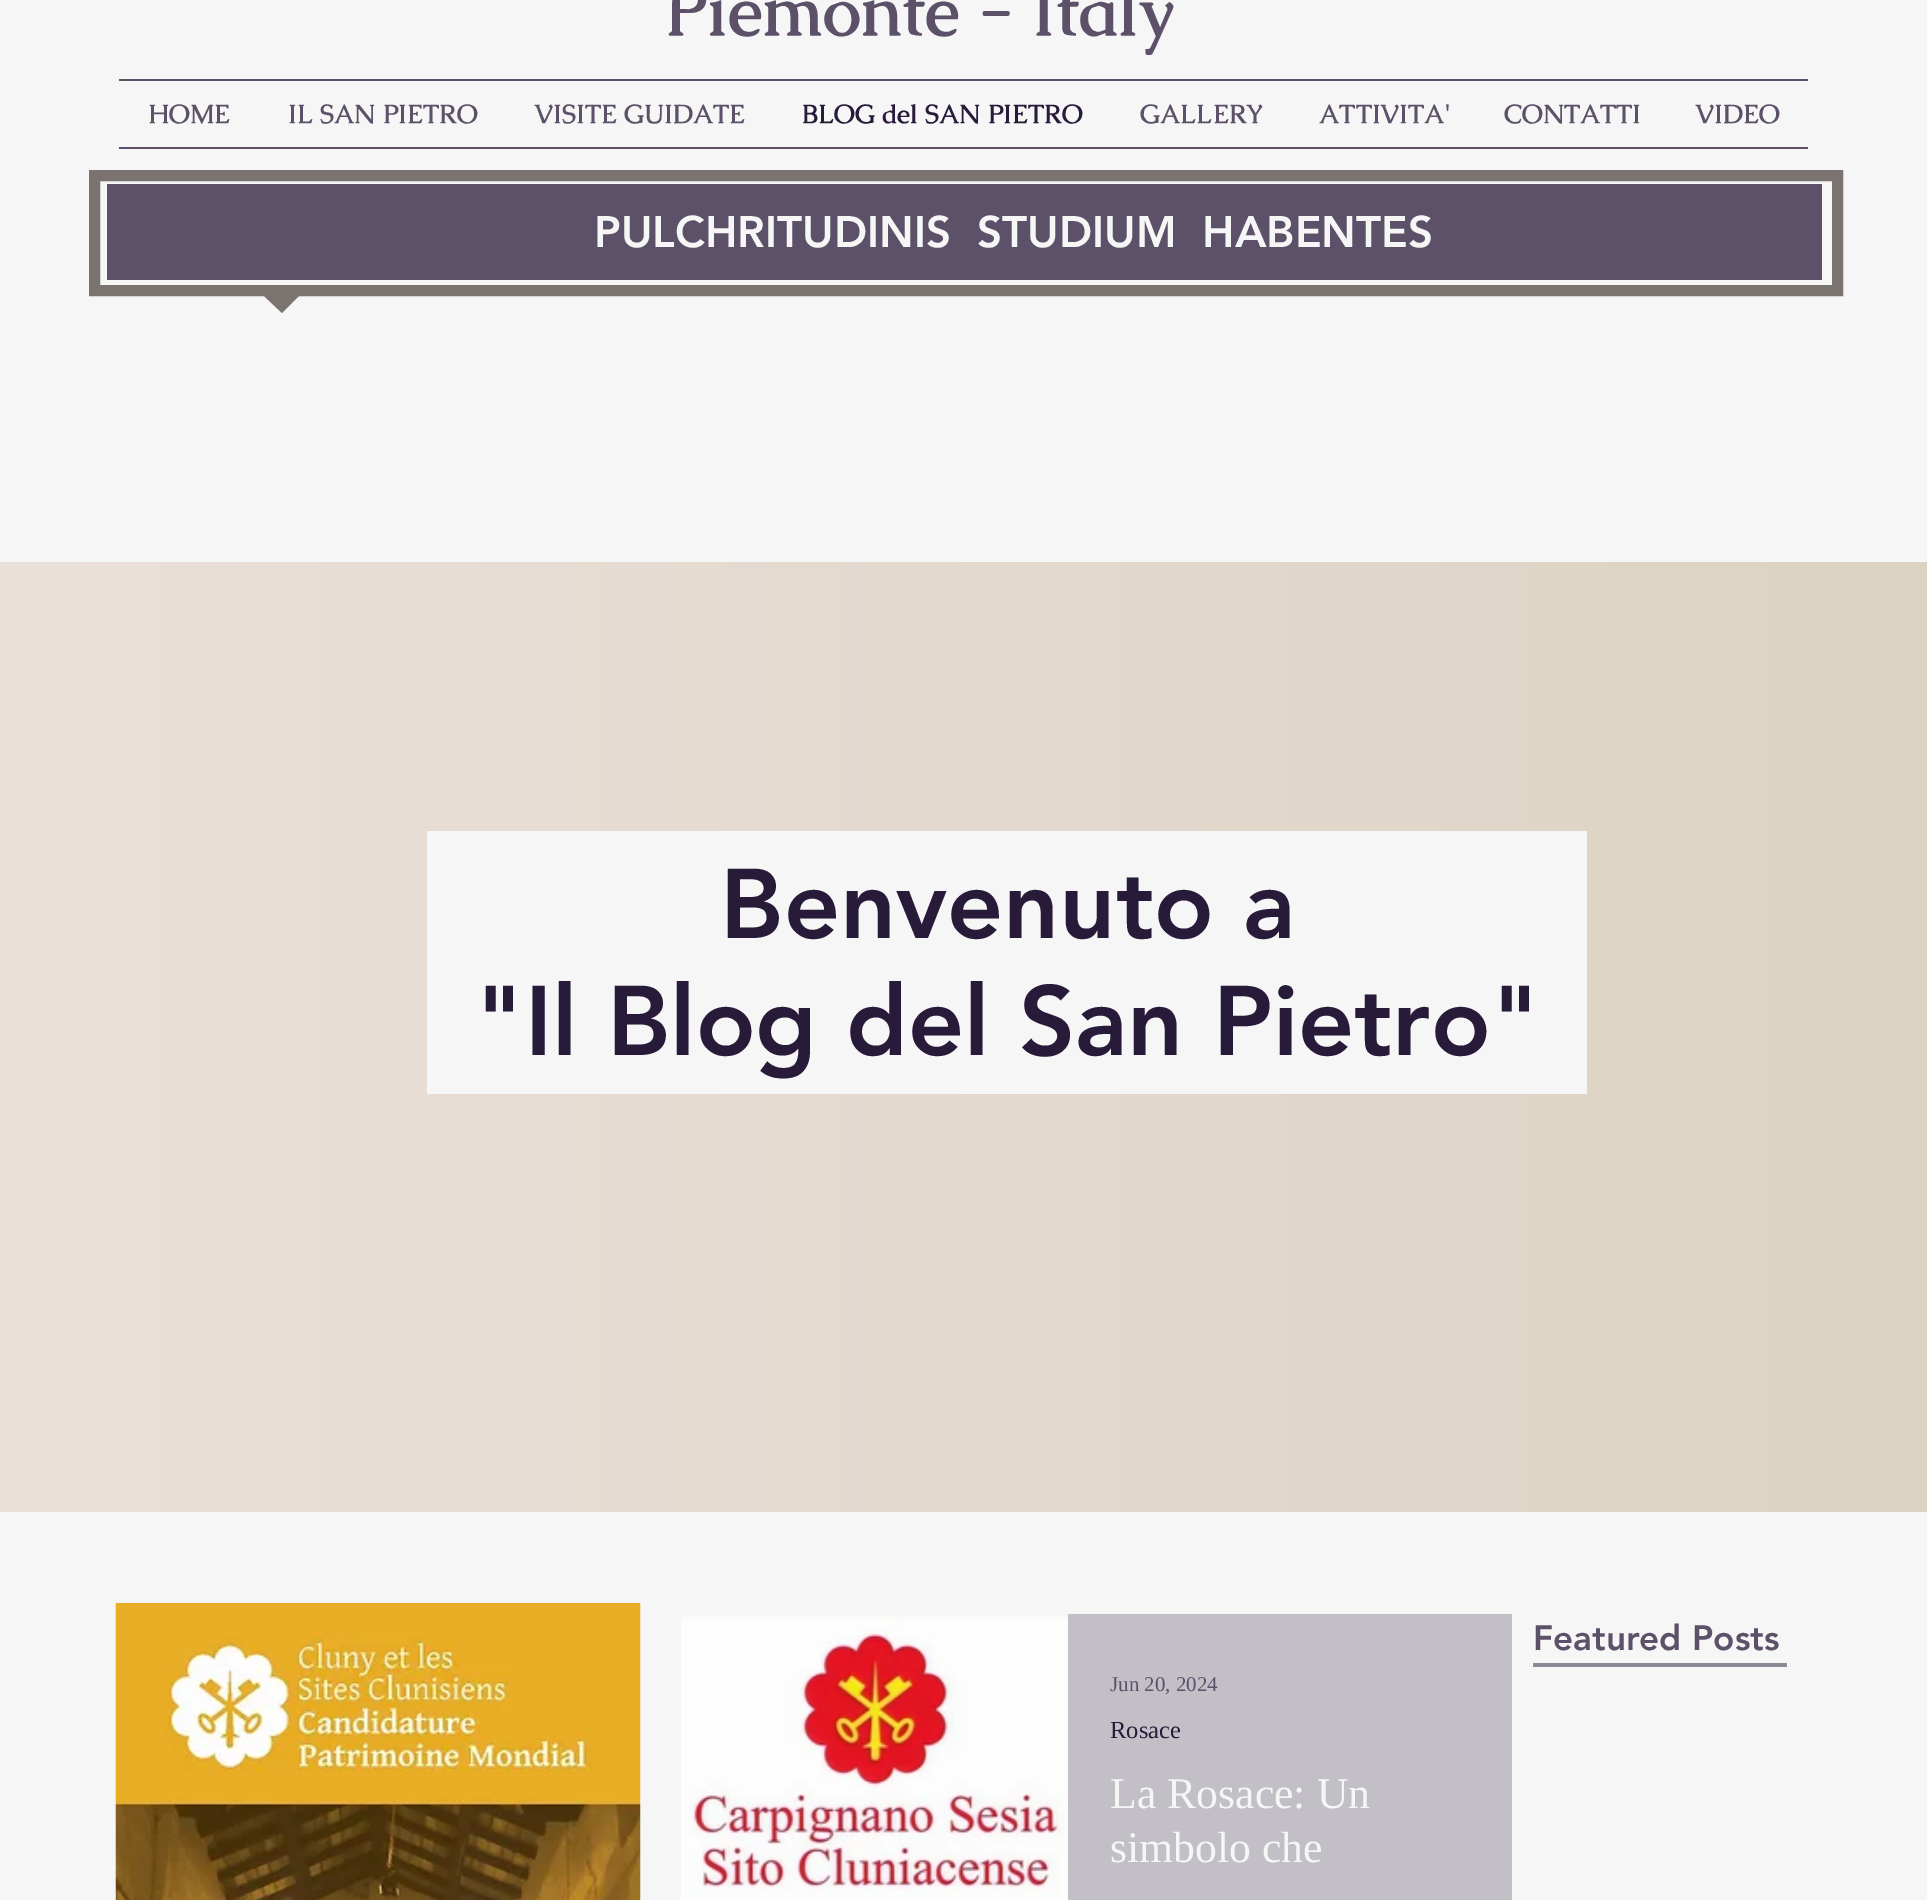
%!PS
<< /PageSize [1927 1900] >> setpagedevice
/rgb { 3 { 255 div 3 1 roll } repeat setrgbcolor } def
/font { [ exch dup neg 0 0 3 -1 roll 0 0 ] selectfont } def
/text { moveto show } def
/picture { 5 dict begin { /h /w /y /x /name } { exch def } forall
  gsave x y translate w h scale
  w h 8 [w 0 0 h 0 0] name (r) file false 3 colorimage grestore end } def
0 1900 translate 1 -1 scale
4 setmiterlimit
246 246 246 rgb
0 0 1927 1900 rectfill
92 81 104 rgb
119 79 1689 2 rectfill
119 147 1689 2 rectfill
123 115 111 rgb
11 setlinewidth
94.5 175.5 1743 115 rectstroke
92 81 104 rgb
107 184 1715 96 rectfill
123 115 111 rgb
264 296 moveto 35 0 rlineto -17 17 rlineto closepath fill
gsave 0 562 moveto 1927 0 rlineto 0 950 rlineto -1927 0 rlineto closepath clip newpath
<< /ShadingType 2 /ColorSpace /DeviceRGB /Coords [0 1037 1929 1037] /Extend [true true] /Function << /FunctionType 2 /Domain [0 1] /C0 [0.918 0.878 0.855] /C1 [0.863 0.827 0.765] /N 1 >> >> shfill grestore
246 246 246 rgb
427 831 1160 263 rectfill
(img_01.rgb) 115 1603 526 297 picture
143 136 152 rgb
1533 1663 254 4 rectfill
(img_02.rgb) 681 1614 387 286 picture
195 191 199 rgb
1068 1614 444 286 rectfill
/Caudex-Bold 70 font
92 81 104 rgb
(Piemonte - Italy) 665 35 text
/Caudex-Bold 26.25 font
(HOME) 148 123 text
(IL SAN PIETRO) 288 123 text
(VISITE GUIDATE) 534 123 text
40 26 57 rgb
(BLOG del SAN PIETRO) 802 123 text
92 81 104 rgb
(GALLERY) 1140 123 text
(ATTIVITA') 1319 123 text
(CONTATTI) 1504 123 text
(VIDEO) 1695 123 text
/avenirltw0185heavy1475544-Black 43.75 font
246 246 246 rgb
(PULCHRITUDINIS  STUDIUM  HABENTES) 594 247 text
/avenirltw0185heavy1475544-Black 98 font
40 26 57 rgb
(Benvenuto a) 720 938 text
("Il Blog del San Pietro") 474 1055 text
/avenirltw0185heavy1475544-Black 35 font
92 81 104 rgb
(Featured Posts) 1533 1650 text
/LiberationSerif-Regular 21 font
(Jun 20, 2024) 1110 1691 text
/LiberationSerif-Regular 24.5 font
40 26 57 rgb
(Rosace) 1110 1738 text
/LiberationSerif-Regular 43.75 font
246 246 246 rgb
(La Rosace: Un) 1110 1808 text
(simbolo che) 1110 1862 text
showpage
